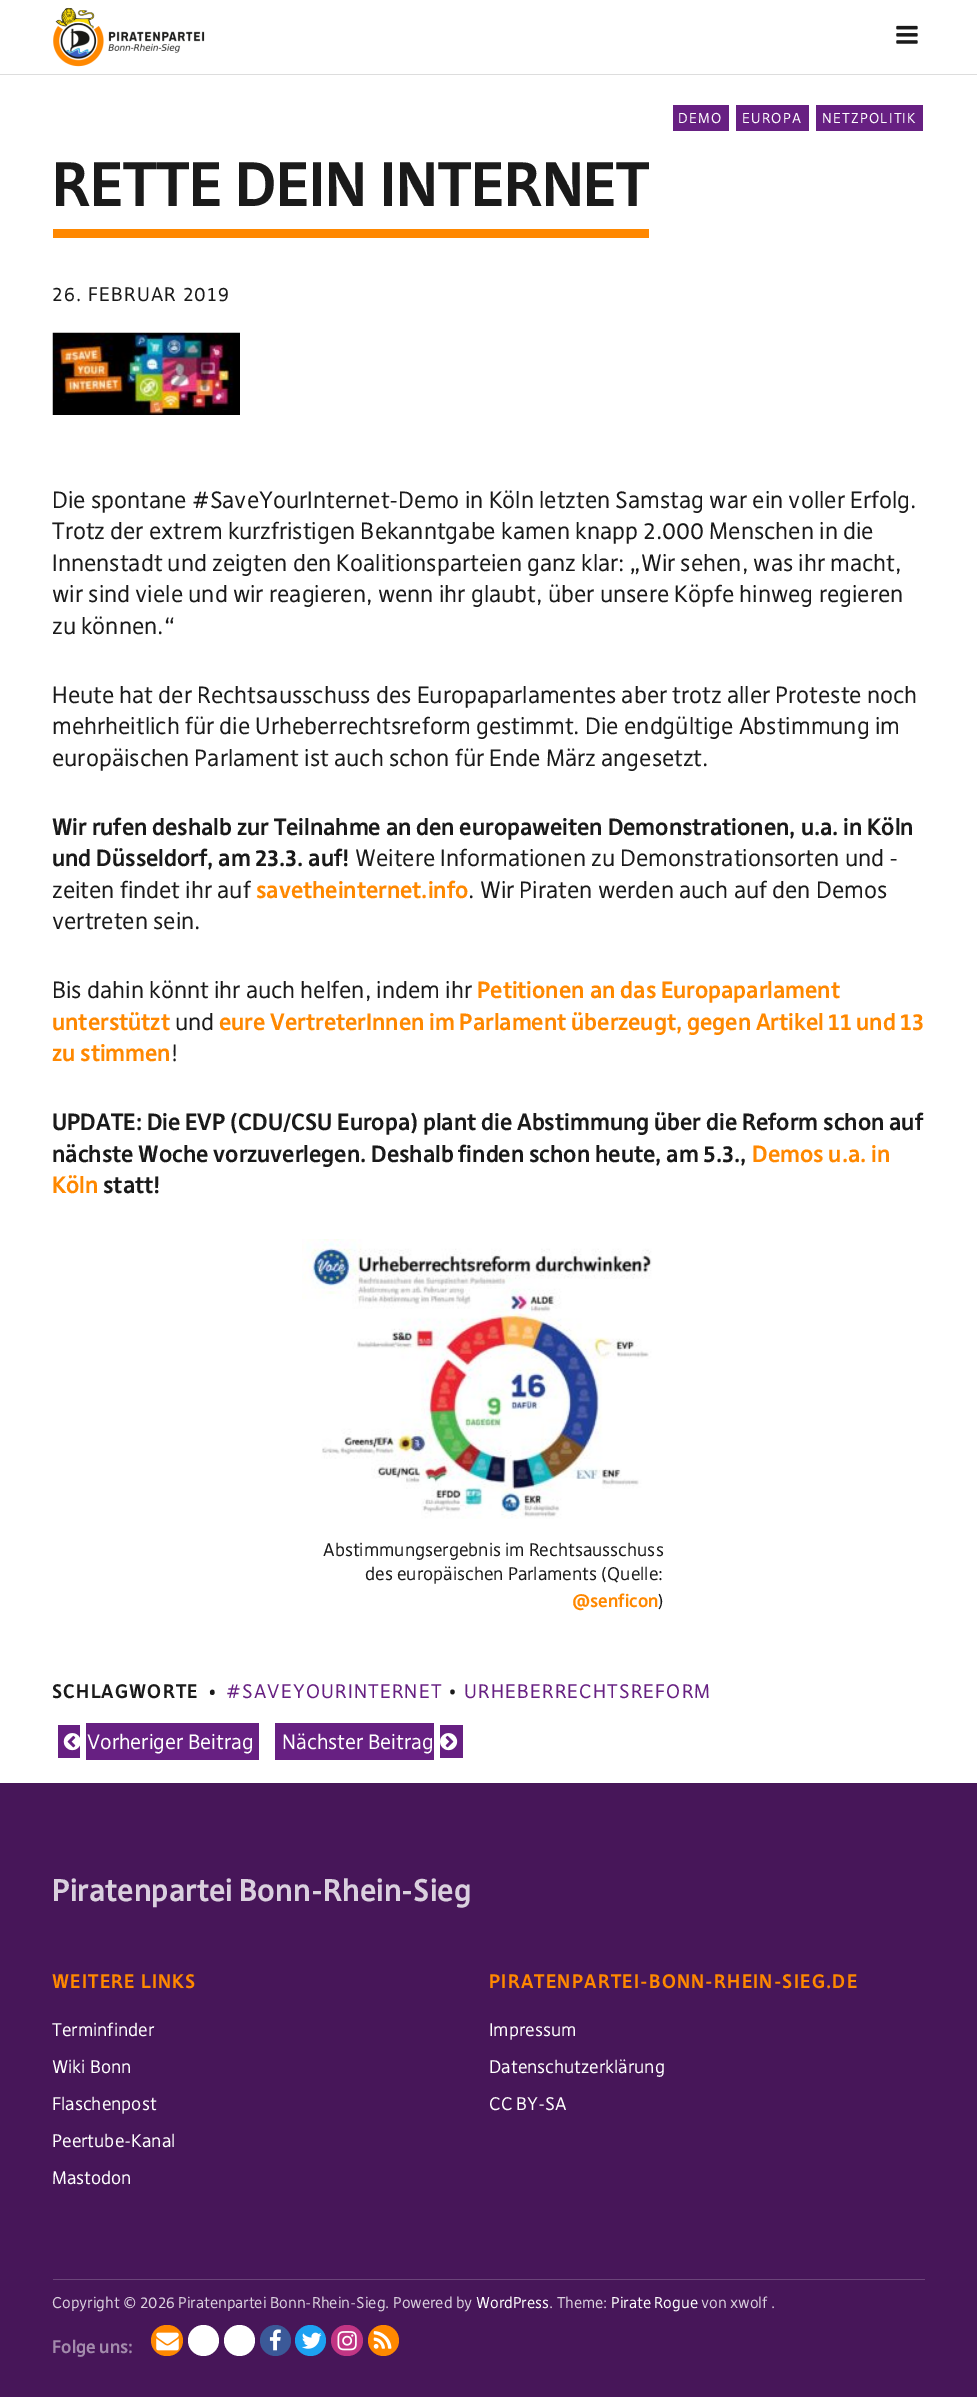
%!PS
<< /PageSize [977 2397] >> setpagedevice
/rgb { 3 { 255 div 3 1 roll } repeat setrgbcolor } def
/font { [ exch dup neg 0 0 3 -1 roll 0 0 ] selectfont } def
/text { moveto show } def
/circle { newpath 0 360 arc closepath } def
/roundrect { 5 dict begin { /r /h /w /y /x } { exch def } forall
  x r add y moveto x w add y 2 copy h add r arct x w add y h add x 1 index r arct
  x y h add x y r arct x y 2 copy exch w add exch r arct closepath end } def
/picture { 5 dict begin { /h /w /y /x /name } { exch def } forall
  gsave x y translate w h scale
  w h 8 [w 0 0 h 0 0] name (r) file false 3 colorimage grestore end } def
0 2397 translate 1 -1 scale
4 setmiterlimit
255 255 255 rgb
0 0 977 2397 rectfill
221 221 221 rgb
0 74 977 1 rectfill
(img_01.rgb) 53 7 152 60 picture
(img_02.rgb) 896 25 22 19 picture
103 32 130 rgb
673 105 56 26 rectfill
736 105 73 26 rectfill
816 105 107 26 rectfill
255 136 0 rgb
53 229 596 9 rectfill
(img_03.rgb) 52 332 188 83 picture
(img_04.rgb) 302 1239 350 280 picture
103 32 130 rgb
58 1725 22 33 rectfill
86 1723 173 37 rectfill
(img_05.rgb) 63 1733 17 18 picture
275 1723 159 37 rectfill
440 1725 23 33 rectfill
(img_06.rgb) 440 1733 18 18 picture
71 22 89 rgb
0 1783 977 614 rectfill
108 69 122 rgb
53 2279 872 1 rectfill
255 136 0 rgb
151 2325 32 31 15.5 roundrect fill
(img_07.rgb) 156 2332 23 19 picture
255 255 255 rgb
203.5 2340.5 15.5 circle fill
239.5 2340.5 15.5 circle fill
59 89 152 rgb
275.5 2340.5 15.5 circle fill
(img_08.rgb) 269 2329 12 22 picture
29 161 242 rgb
310.5 2340.5 15.5 circle fill
(img_09.rgb) 302 2332 20 17 picture
193 53 132 rgb
331 2325 32 31 15.5 roundrect fill
(img_10.rgb) 337 2331 20 20 picture
255 136 0 rgb
383.5 2340.5 15.5 circle fill
(img_11.rgb) 373 2331 19 18 picture
/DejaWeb-Regular 13.75 font
255 255 255 rgb
678 123 moveto 1.25 0 (DEMO) ashow
742 123 moveto 1.25 0 (EUROPA) ashow
822 123 moveto 1.25 0 (NETZPOLITIK) ashow
/DejaWeb-Bold 60 font
26 26 26 rgb
(RETTE DEIN INTERNET) 52 206 text
/DejaWeb-Regular 18.75 font
52 301 moveto 1.25 0 (26. FEBRUAR 2019) ashow
/DejaWeb-Regular 22.5 font
(Die spontane #SaveYourInternet-Demo in Köln letzten Samstag war ein voller Erfolg.) 52 508 text
(Trotz der extrem kurzfristigen Bekanntgabe kamen knapp 2.000 Menschen in die) 52 539 text
(Innenstadt und zeigten den Koalitionsparteien ganz klar: „Wir sehen, was ihr macht,) 52 571 text
(wir sind viele und wir reagieren, wenn ihr glaubt, über unsere Köpfe hinweg regieren) 52 602 text
(zu können.“) 52 634 text
(Heute hat der Rechtsausschuss des Europaparlamentes aber trotz aller Proteste noch) 52 703 text
(mehrheitlich für die Urheberrechtsreform gestimmt. Die endgültige Abstimmung im) 52 734 text
(europäischen Parlament ist auch schon für Ende März angesetzt.) 52 766 text
/DejaWeb-Bold 22.5 font
(Wir rufen deshalb zur Teilnahme an den europaweiten Demonstrationen, u.a. in Köln) 52 835 text
(und Düsseldorf, am 23.3. auf!) 52 866 text
/DejaWeb-Regular 22.5 font
(Weitere Informationen zu Demonstrationsorten und -) 355 866 text
(zeiten findet ihr auf) 52 898 text
/DejaWeb-Bold 22.5 font
255 136 0 rgb
(savetheinternet.info) 256 898 text
/DejaWeb-Regular 22.5 font
26 26 26 rgb
(. Wir Piraten werden auch auf den Demos) 468 898 text
(vertreten sein.) 52 929 text
(Bis dahin könnt ihr auch helfen, indem ihr) 52 998 text
/DejaWeb-Bold 22.5 font
255 136 0 rgb
(Petitionen) 477 998 text
(an das Europaparlament) 590 998 text
(unterstützt) 52 1030 text
/DejaWeb-Regular 22.5 font
26 26 26 rgb
(und) 175 1030 text
/DejaWeb-Bold 22.5 font
255 136 0 rgb
(eure VertreterInnen im Parlament überzeugt, gegen Artikel 11 und 13) 219 1030 text
(zu stimmen) 52 1061 text
/DejaWeb-Regular 22.5 font
26 26 26 rgb
(!) 171 1061 text
/DejaWeb-Bold 22.5 font
(UPDATE: Die EVP \(CDU/CSU Europa\) plant die Abstimmung über die Reform schon auf) 52 1130 text
(nächste Woche vorzuverlegen. Deshalb finden schon heute, am 5.3.,) 52 1162 text
255 136 0 rgb
(Demos u.a. in) 752 1162 text
(Köln) 52 1193 text
26 26 26 rgb
(statt!) 103 1193 text
/DejaWeb-Regular 17.5 font
(Abstimmungsergebnis im Rechtsausschuss) 323 1556 text
(des europäischen Parlaments \(Quelle:) 365 1580 text
/DejaWeb-Bold 17.5 font
255 136 0 rgb
(@senficon) 572 1607 text
/DejaWeb-Regular 17.5 font
26 26 26 rgb
(\)) 658 1607 text
/DejaWeb-Bold 18.75 font
52 1698 moveto 1.25 0 (SCHLAGWORTE) ashow
208 1698 moveto 1.25 0 (•) ashow
/DejaWeb-Regular 18.75 font
103 32 130 rgb
226 1698 moveto 1.25 0 (#SAVEYOURINTERNET) ashow
26 26 26 rgb
448 1698 moveto 1.25 0 (•) ashow
103 32 130 rgb
464 1698 moveto 1.25 0 (URHEBERRECHTSREFORM) ashow
/DejaWeb-Regular 20 font
255 255 255 rgb
(Vorheriger Beitrag) 87 1749 text
(Nächster Beitrag) 282 1749 text
/DejaWeb-Bold 30 font
218 208 222 rgb
(Piratenpartei Bonn-Rhein-Sieg) 52 1901 text
/DejaWeb-Bold 18.75 font
255 136 0 rgb
52 1988 moveto 1.25 0 (WEITERE LINKS) ashow
/DejaWeb-Regular 17.5 font
255 255 255 rgb
(Terminfinder) 52 2036 text
(Wiki Bonn) 52 2073 text
(Flaschenpost) 52 2110 text
(Peertube-Kanal) 52 2147 text
(Mastodon) 52 2184 text
/DejaWeb-Bold 18.75 font
255 136 0 rgb
489 1988 moveto 1.25 0 (PIRATENPARTEI-BONN-RHEIN-SIEG.DE) ashow
/DejaWeb-Regular 17.5 font
255 255 255 rgb
(Impressum) 489 2036 text
(Datenschutzerklärung) 489 2073 text
(CC BY-SA) 489 2110 text
/DejaWeb-Regular 15 font
218 208 222 rgb
(Copyright © 2026 Piratenpartei Bonn-Rhein-Sieg. Powered by) 52 2308 text
255 255 255 rgb
(WordPress) 476 2308 text
218 208 222 rgb
(. Theme:) 549 2308 text
255 255 255 rgb
(Pirate Rogue) 611 2308 text
218 208 222 rgb
(von xwolf .) 701 2308 text
/DejaWeb-Bold 17.5 font
163 139 172 rgb
(Folge uns:) 52 2353 text
showpage
